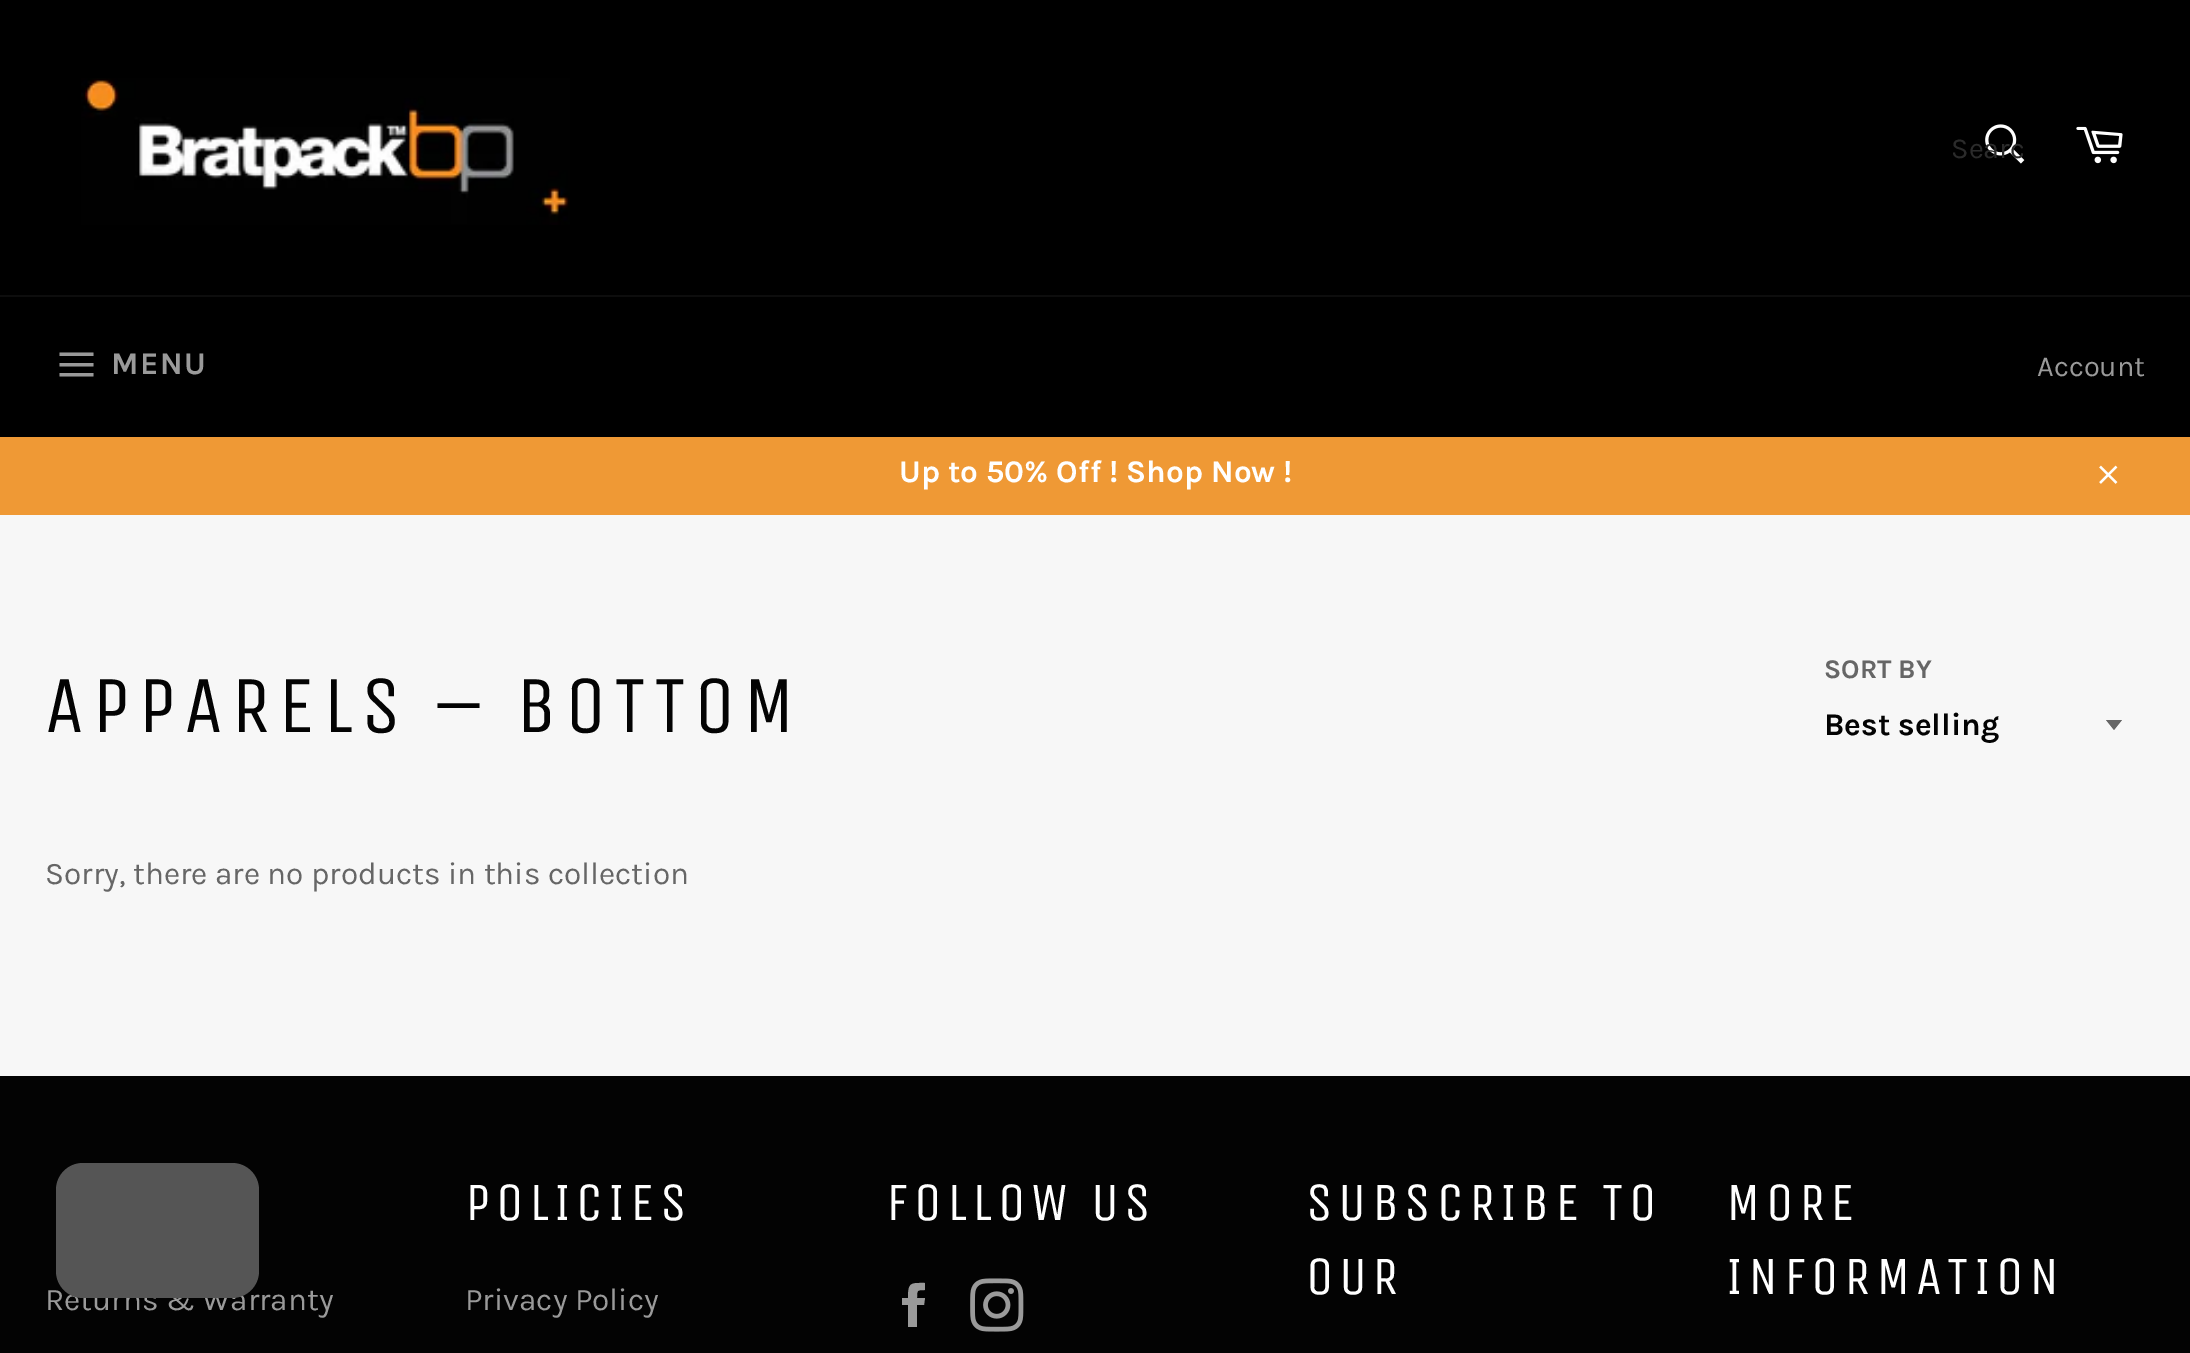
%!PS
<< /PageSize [2190 1353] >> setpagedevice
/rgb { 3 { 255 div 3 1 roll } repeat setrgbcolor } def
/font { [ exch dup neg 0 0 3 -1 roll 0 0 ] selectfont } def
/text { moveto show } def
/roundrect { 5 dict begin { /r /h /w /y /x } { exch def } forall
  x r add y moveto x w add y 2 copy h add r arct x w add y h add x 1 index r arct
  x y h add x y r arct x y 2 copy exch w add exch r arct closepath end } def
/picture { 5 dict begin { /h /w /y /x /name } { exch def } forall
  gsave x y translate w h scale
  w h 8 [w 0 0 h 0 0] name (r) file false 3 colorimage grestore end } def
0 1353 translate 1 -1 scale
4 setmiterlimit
247 247 247 rgb
0 0 2190 1353 rectfill
0 0 0 rgb
0 0 2190 295 rectfill
(img_01.rgb) 81 78 489 147 picture
(img_02.rgb) 1985 124 40 40 picture
(img_03.rgb) 2076 126 47 38 picture
0 297 2190 140 rectfill
13 13 13 rgb
0 295 2190 2 rectfill
153 153 153 rgb
59.5 363 moveto 34 0 rlineto 0 3.5 rlineto -34 0 rlineto closepath 59.5 352.5 moveto 34 0 rlineto 0 3.5 rlineto -34 0 rlineto closepath 59.5 373 moveto 34 0 rlineto 0 3.5 rlineto -34 0 rlineto closepath fill
239 153 53 rgb
0 437 2190 78 rectfill
(img_04.rgb) 2099 465 19 19 picture
102 102 102 rgb
2106 720 moveto 8 10 rlineto 8 -10 rlineto closepath fill
3 3 3 rgb
0 1076 2190 277 rectfill
154 154 154 rgb
917 1298 moveto 0 -8 0 -8 8 -8 rcurveto 0 -7 rlineto -14 0 -17 -1 -17 15 rcurveto -6 0 rlineto 0 7 rlineto 6 0 rlineto 0 22 rlineto 9 0 rlineto 0 -22 rlineto 7 0 rlineto 1 -7 rlineto closepath fill
(img_05.rgb) 970 1278 54 54 picture
gsave
1951 131 72 33 rectclip
/Karla-Regular 29 font
43 43 43 rgb
(Searc) 1951 158 text
grestore
/Karla-Bold 31.5 font
111 374 moveto 1.5 0 (MENU) ashow
/Karla-Regular 29 font
(Account) 2037 376 text
/Karla-Bold 31.5 font
255 255 255 rgb
(Up to 50% Off ! Shop Now !) 899 482 text
/UnicaOne-Regular 81 font
3 3 3 rgb
45 732 moveto 8.1 0 (APPARELS – BOTTOM) ashow
/Karla-Bold 27 font
102 102 102 rgb
(SORT BY) 1824 678 text
/Karla-Bold 31.5 font
3 3 3 rgb
(Best selling) 1824 735 text
/Karla-Regular 31.5 font
102 102 102 rgb
(Sorry, there are no products in this collection) 45 884 text
/UnicaOne-Regular 54 font
255 255 255 rgb
465 1220 moveto 5.4 0 (POLICIES) ashow
/Karla-Regular 31.5 font
154 154 154 rgb
(Privacy Policy) 465 1310 text
/UnicaOne-Regular 54 font
255 255 255 rgb
886 1220 moveto 5.4 0 (FOLLOW US) ashow
1306 1220 moveto 5.4 0 (SUBSCRIBE TO) ashow
1306 1294 moveto 5.4 0 (OUR) ashow
1726 1220 moveto 5.4 0 (MORE) ashow
1726 1294 moveto 5.4 0 (INFORMATION) ashow
/Karla-Regular 31.5 font
154 154 154 rgb
(Returns & Warranty) 45 1310 text
85 85 85 rgb
56 1163 203 135 27 roundrect fill
showpage
